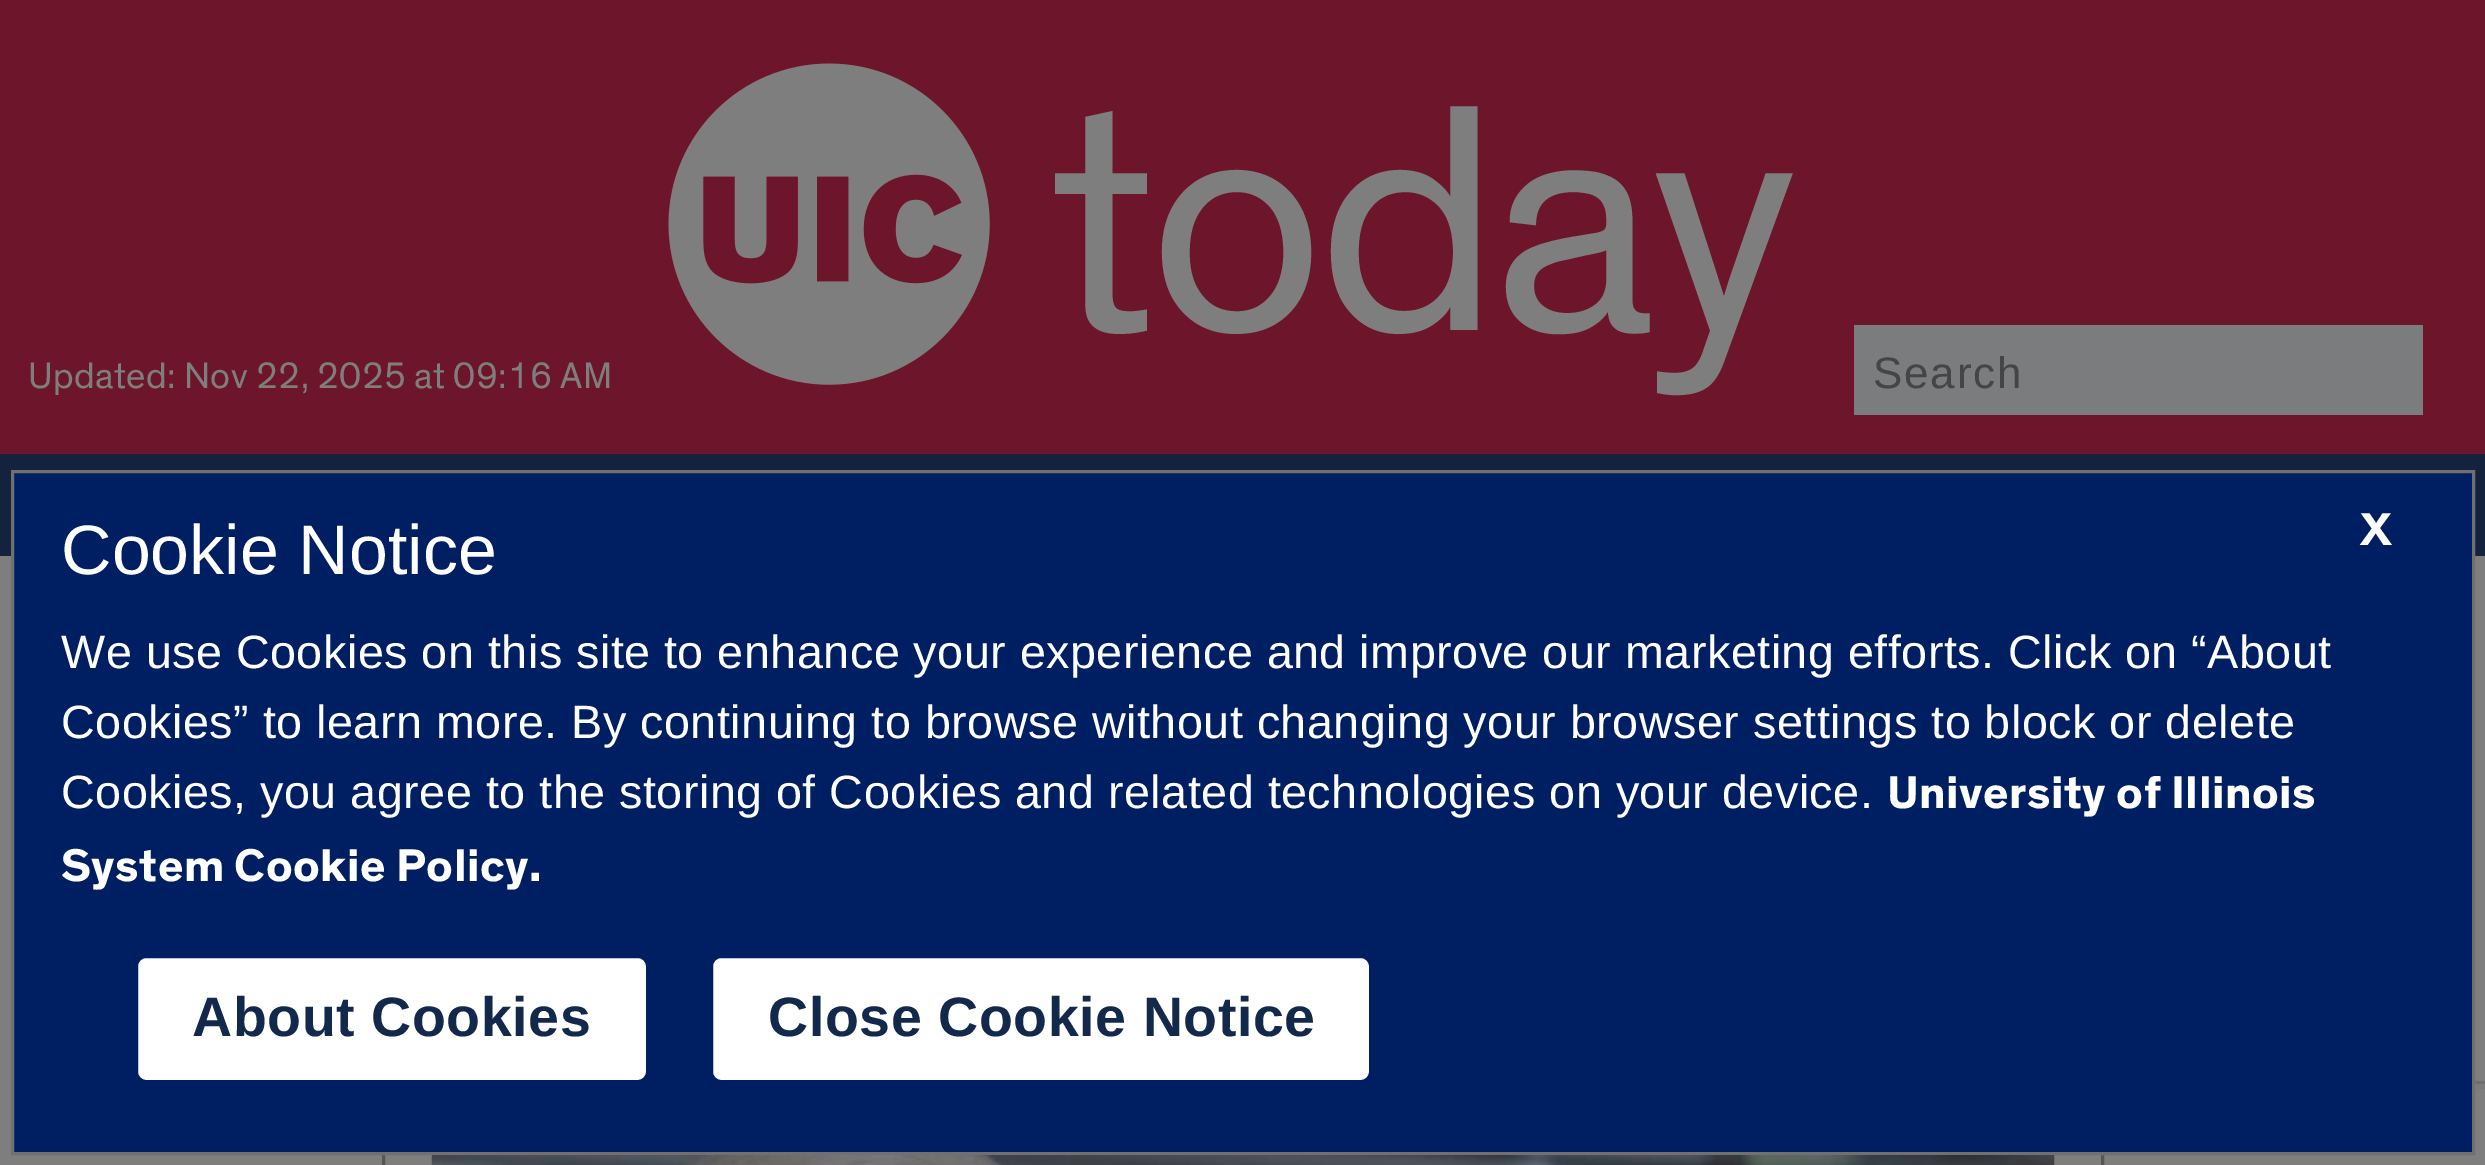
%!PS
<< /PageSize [2485 1165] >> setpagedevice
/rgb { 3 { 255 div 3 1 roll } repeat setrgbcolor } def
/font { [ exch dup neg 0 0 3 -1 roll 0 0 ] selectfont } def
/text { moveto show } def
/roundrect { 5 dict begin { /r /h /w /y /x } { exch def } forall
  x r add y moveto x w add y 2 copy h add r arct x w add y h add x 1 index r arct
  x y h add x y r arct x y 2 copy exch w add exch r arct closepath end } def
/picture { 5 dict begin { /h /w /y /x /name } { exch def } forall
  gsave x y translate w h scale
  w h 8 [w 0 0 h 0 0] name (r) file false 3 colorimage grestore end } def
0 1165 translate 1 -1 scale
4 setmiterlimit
126 126 126 rgb
0 0 2485 1165 rectfill
109 21 42 rgb
0 0 2485 454 rectfill
(img_01.rgb) 668 63 322 322 picture
123 124 126 rgb
1854 325 569 90 rectfill
21 34 61 rgb
0 454 2485 102 rectfill
86 86 86 rgb
3 setlinewidth
383.5 1060.5 1719 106 rectstroke
0 30 98 rgb
12.5 471.5 moveto 2461 0 rlineto 0 682 rlineto -2461 0 rlineto closepath gsave fill grestore
112 112 112 rgb
stroke
255 255 255 rgb
135 955 514 128 11 roundrect gsave fill grestore
0 30 98 rgb
6 setlinewidth
stroke
255 255 255 rgb
710 955 662 128 11 roundrect gsave fill grestore
0 30 98 rgb
stroke
(img_02.rgb) 431 1155 1624 10 picture
122 122 122 rgb
2475 1084 10 5 rectfill
110 110 110 rgb
2475 1081 10 3 rectfill
/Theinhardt-Regular 37.4 font
126 126 126 rgb
28 388 moveto 0.4 0 (Updated: Nov 22, 2025 at 09:16 AM) ashow
/Theinhardt-Regular 330 font
1051 330 moveto -6.5 0 (today) ashow
/LiberationSans-Regular 44 font
69 69 69 rgb
1873 388 moveto 1.75 0 (Search) ashow
/LiberationSans-Regular 70 font
255 255 255 rgb
(Cookie Notice) 61 574 text
/Theinhardt-Bold 46.75 font
2360 545 moveto 0.47 0 (X) ashow
/LiberationSans-Regular 46.75 font
61 668 moveto 0.47 0 (We use Cookies on this site to enhance your experience and improve our marketing efforts. Click on “About) ashow
61 738 moveto 0.47 0 (Cookies” to learn more. By continuing to browse without changing your browser settings to block or delete) ashow
61 808 moveto 0.47 0 (Cookies, you agree to the storing of Cookies and related technologies on your device.) ashow
/Theinhardt-Bold 46.75 font
1887 808 moveto 0.47 0 (University of Illinois) ashow
61 881 moveto 0.47 0 (System Cookie Policy.) ashow
/LiberationSans-Bold 55.5 font
19 41 75 rgb
192 1036 moveto 0.6 0 (About Cookies) ashow
768 1036 moveto 0.6 0 (Close Cookie Notice) ashow
showpage
